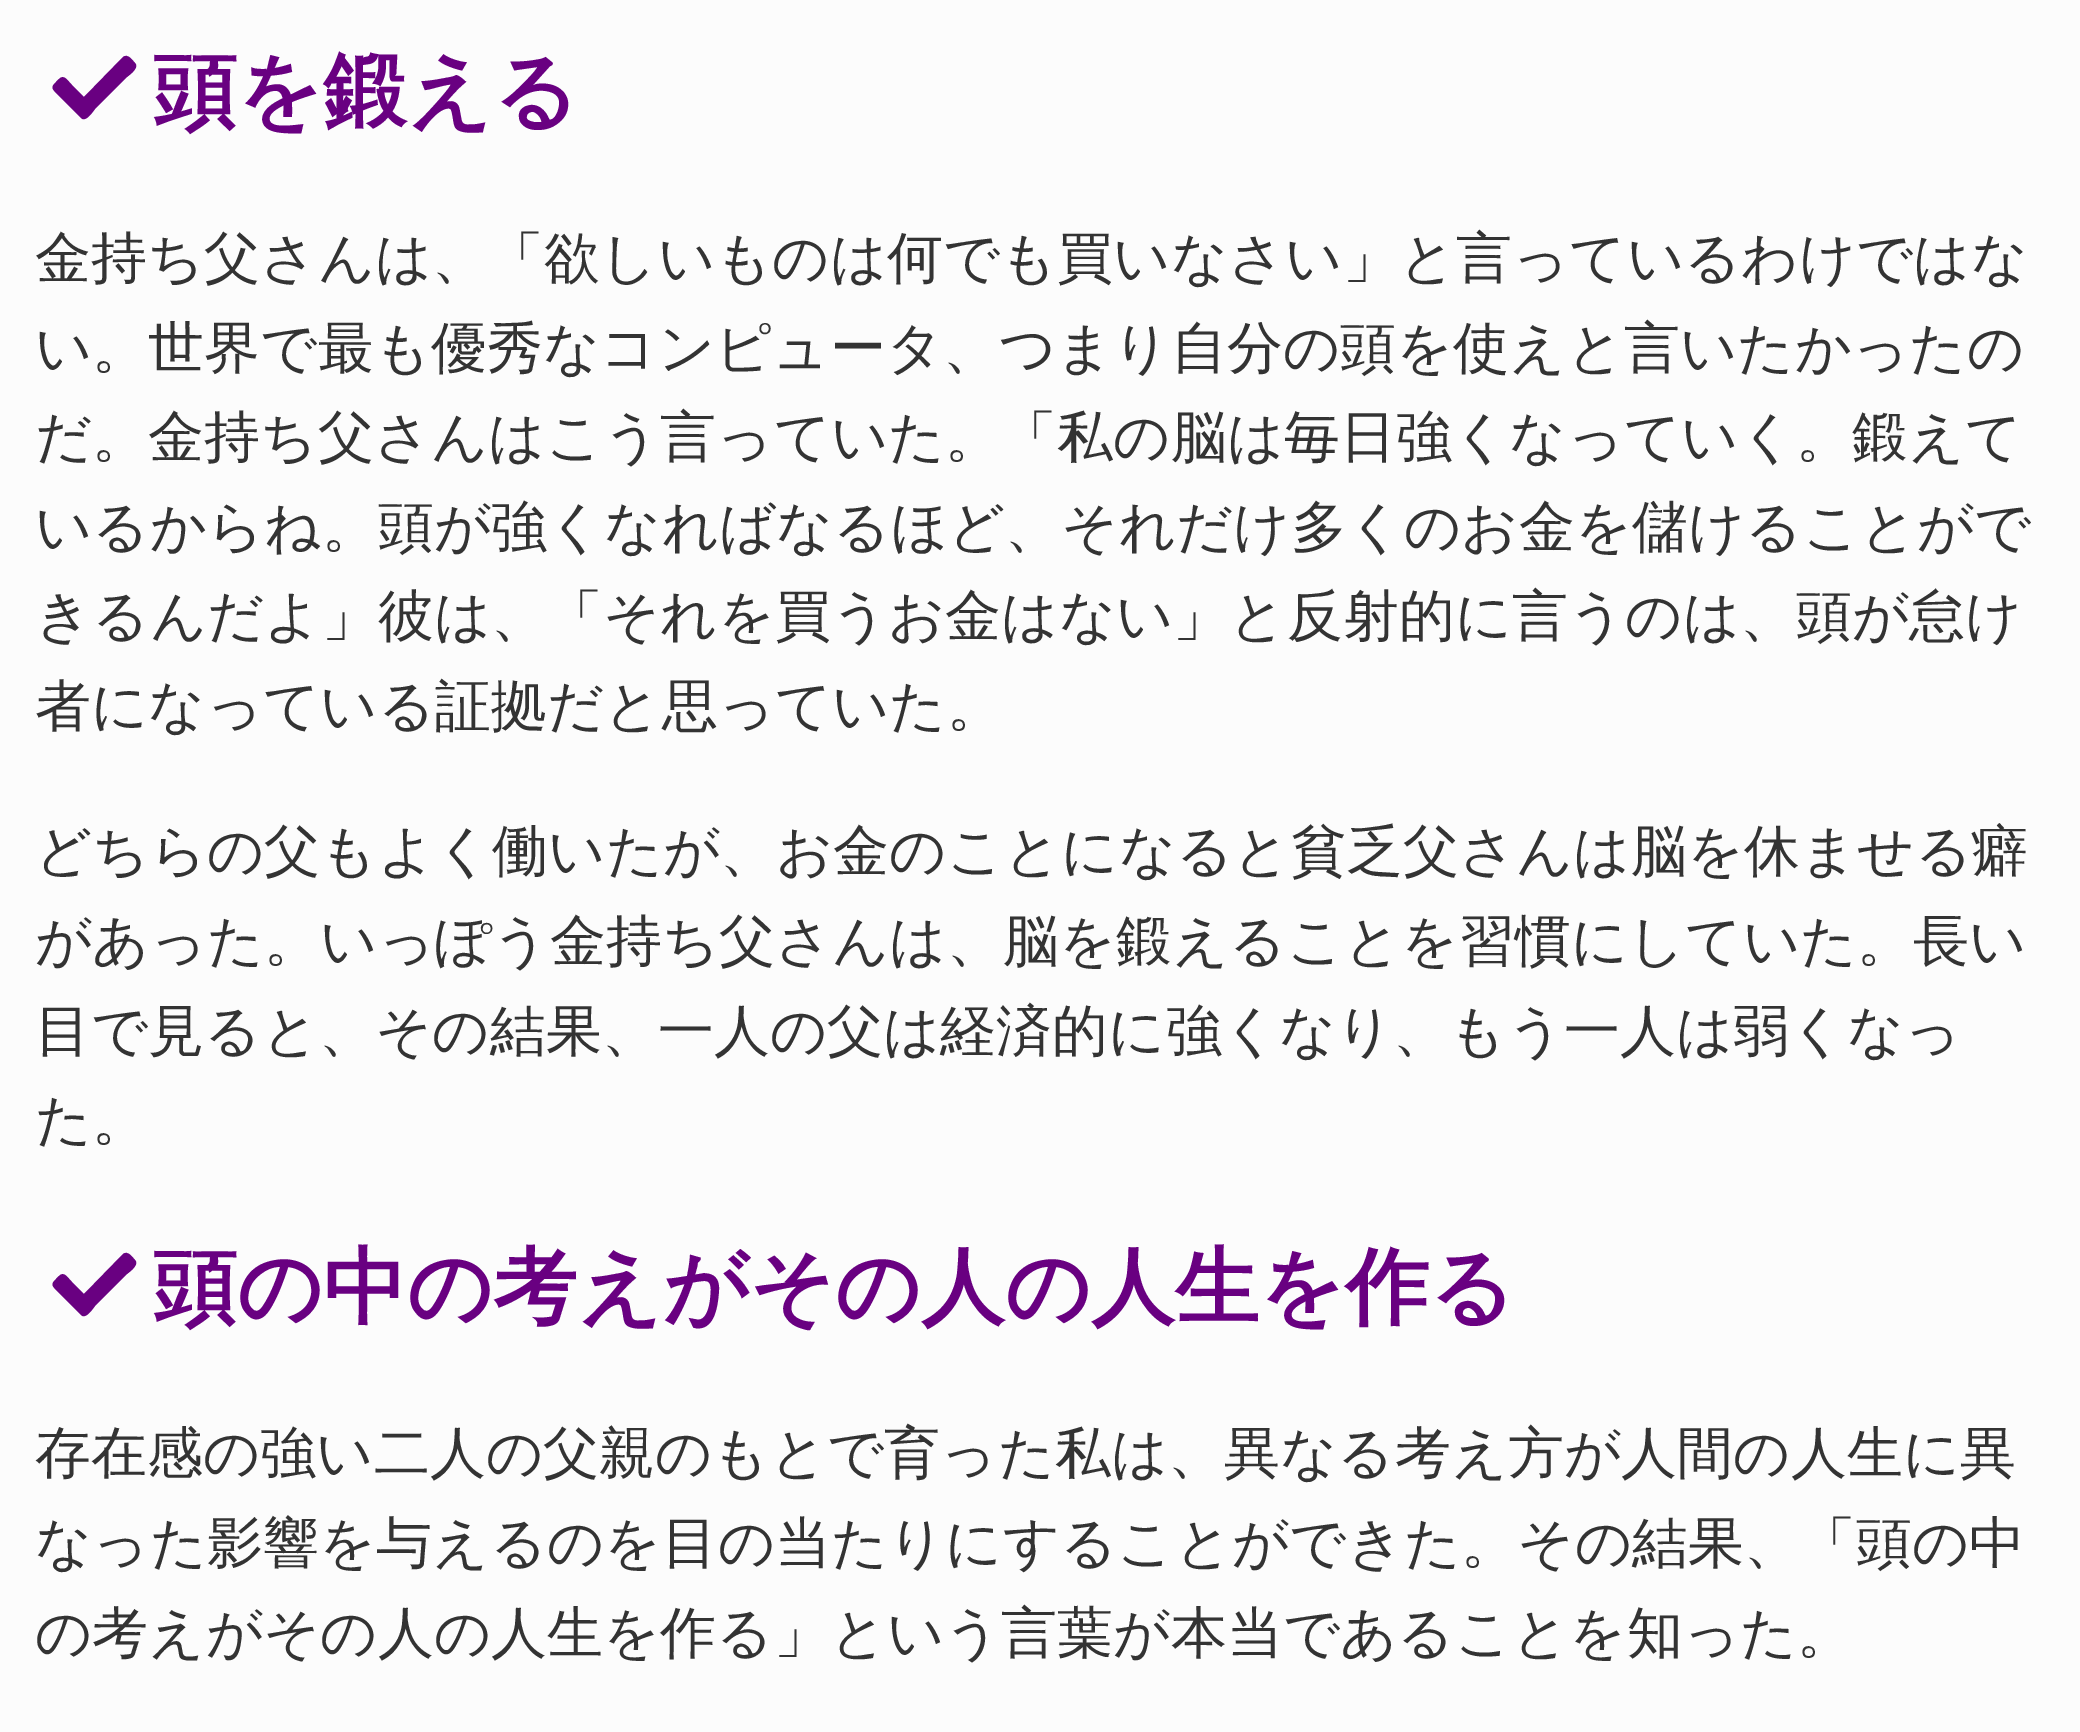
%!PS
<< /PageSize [2080 1732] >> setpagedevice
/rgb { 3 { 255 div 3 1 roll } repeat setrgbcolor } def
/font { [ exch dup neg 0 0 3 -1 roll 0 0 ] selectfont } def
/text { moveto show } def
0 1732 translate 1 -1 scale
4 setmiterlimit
252 252 252 rgb
0 0 2080 1732 rectfill
105 0 129 rgb
81 118 moveto -23 -23 rlineto -8 -8 -7 -8 1 -16 rcurveto 5 -5 8 1 13 6 rcurveto 12 12 rlineto 39 -40 rlineto 5 -4 10 4 12 6 rcurveto 5 5 -7 13 -8 14 rcurveto -32 32 rlineto -1 1 -9 14 -14 9 rcurveto closepath fill
81 1315 moveto -23 -23 rlineto -8 -8 -7 -8 1 -16 rcurveto 5 -5 8 1 13 6 rcurveto 12 12 rlineto 39 -40 rlineto 5 -4 10 4 12 6 rcurveto 5 5 -7 13 -8 14 rcurveto -32 32 rlineto -1 1 -9 14 -14 9 rcurveto closepath fill
/WenQuanYiZenHei-Bold 84 font
(頭を鍛える) 153 120 text
/WenQuanYiZenHei-Medium 56 font
51 51 51 rgb
(金持ち父さんは、「欲しいものは何でも買いなさい」と言っているわけではな) 35 277 text
(い。世界で最も優秀なコンピュータ、つまり自分の頭を使えと言いたかったの) 35 367 text
(だ。金持ち父さんはこう言っていた。「私の脳は毎日強くなっていく。鍛えて) 35 456 text
(いるからね。頭が強くなればなるほど、それだけ多くのお金を儲けることがで) 35 546 text
(きるんだよ」彼は、「それを買うお金はない」と反射的に言うのは、頭が怠け) 35 635 text
(者になっている証拠だと思っていた。) 35 725 text
(どちらの父もよく働いたが、お金のことになると貧乏父さんは脳を休ませる癖) 35 870 text
(があった。いっぽう金持ち父さんは、脳を鍛えることを習慣にしていた。長い) 35 960 text
(目で見ると、その結果、一人の父は経済的に強くなり、もう一人は弱くなっ) 35 1050 text
(た。) 35 1139 text
/WenQuanYiZenHei-Bold 84 font
105 0 129 rgb
(頭の中の考えがその人の人生を作る) 153 1316 text
/WenQuanYiZenHei-Medium 56 font
51 51 51 rgb
(存在感の強い二人の父親のもとで育った私は、異なる考え方が人間の人生に異) 35 1472 text
(なった影響を与えるのを目の当たりにすることができた。その結果、「頭の中) 35 1562 text
(の考えがその人の人生を作る」という言葉が本当であることを知った。) 35 1652 text
showpage
